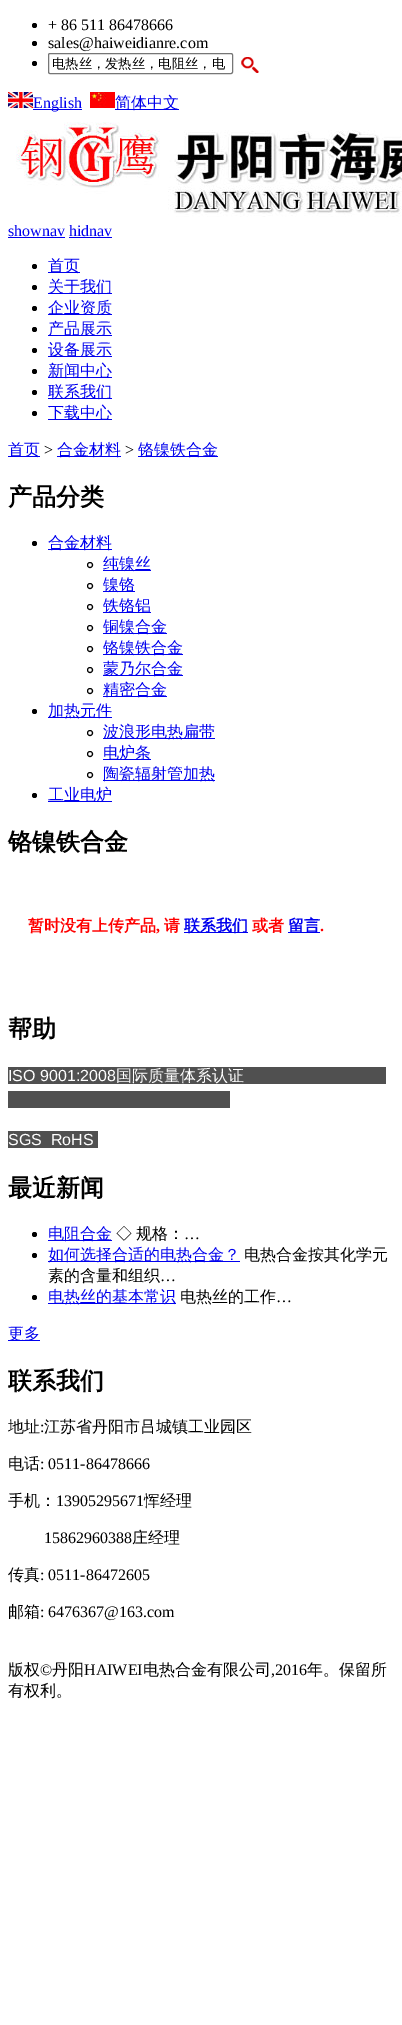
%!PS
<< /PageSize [402 2025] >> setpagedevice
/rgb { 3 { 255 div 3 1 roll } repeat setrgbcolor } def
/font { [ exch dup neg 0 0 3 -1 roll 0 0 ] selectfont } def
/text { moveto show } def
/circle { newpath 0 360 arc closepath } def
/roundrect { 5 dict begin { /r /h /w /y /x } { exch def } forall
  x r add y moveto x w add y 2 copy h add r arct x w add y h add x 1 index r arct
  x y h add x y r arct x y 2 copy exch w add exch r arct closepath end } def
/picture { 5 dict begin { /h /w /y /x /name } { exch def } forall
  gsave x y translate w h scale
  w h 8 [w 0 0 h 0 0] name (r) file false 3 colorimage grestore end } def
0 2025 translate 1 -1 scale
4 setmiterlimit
255 255 255 rgb
0 0 402 2025 rectfill
0 0 0 rgb
34.5 25.5 2.5 circle fill
34.5 43.5 2.5 circle fill
34.5 63.5 2.5 circle fill
118 118 118 rgb
48.5 53.5 184 20 1.5 roundrect stroke
(img_01.rgb) 241 54 18 19 picture
(img_02.rgb) 8 92 25 16 picture
0 0 238 rgb
33 109 49 1 rectfill
(img_03.rgb) 90 92 25 16 picture
115 109 64 1 rectfill
(img_04.rgb) 16 122 386 95 picture
8 237 57 1 rectfill
69 237 43 1 rectfill
0 0 0 rgb
34.5 266.5 2.5 circle fill
0 0 238 rgb
48 272 32 1 rectfill
0 0 0 rgb
34.5 287.5 2.5 circle fill
0 0 238 rgb
48 293 64 1 rectfill
0 0 0 rgb
34.5 308.5 2.5 circle fill
0 0 238 rgb
48 314 64 1 rectfill
0 0 0 rgb
34.5 329.5 2.5 circle fill
0 0 238 rgb
48 335 64 1 rectfill
0 0 0 rgb
34.5 350.5 2.5 circle fill
0 0 238 rgb
48 356 64 1 rectfill
0 0 0 rgb
34.5 371.5 2.5 circle fill
0 0 238 rgb
48 377 64 1 rectfill
0 0 0 rgb
34.5 392.5 2.5 circle fill
0 0 238 rgb
48 398 64 1 rectfill
0 0 0 rgb
34.5 413.5 2.5 circle fill
0 0 238 rgb
48 419 64 1 rectfill
8 456 32 1 rectfill
57 456 64 1 rectfill
138 456 80 1 rectfill
0 0 0 rgb
34.5 543.5 2.5 circle fill
0 0 238 rgb
48 549 64 1 rectfill
0 0 0 rgb
90 565 2.5 circle stroke
0 0 238 rgb
103 570 48 1 rectfill
0 0 0 rgb
90 586 2.5 circle stroke
0 0 238 rgb
103 591 32 1 rectfill
0 0 0 rgb
90 607 2.5 circle stroke
0 0 238 rgb
103 612 48 1 rectfill
0 0 0 rgb
90 628 2.5 circle stroke
0 0 238 rgb
103 633 64 1 rectfill
0 0 0 rgb
90 649 2.5 circle stroke
0 0 238 rgb
103 654 80 1 rectfill
0 0 0 rgb
90 670 2.5 circle stroke
0 0 238 rgb
103 675 80 1 rectfill
0 0 0 rgb
90 691 2.5 circle stroke
0 0 238 rgb
103 696 64 1 rectfill
0 0 0 rgb
34.5 711.5 2.5 circle fill
0 0 238 rgb
48 717 64 1 rectfill
0 0 0 rgb
90 733 2.5 circle stroke
0 0 238 rgb
103 738 112 1 rectfill
0 0 0 rgb
90 754 2.5 circle stroke
0 0 238 rgb
103 759 48 1 rectfill
0 0 0 rgb
90 775 2.5 circle stroke
0 0 238 rgb
103 780 112 1 rectfill
0 0 0 rgb
34.5 795.5 2.5 circle fill
0 0 238 rgb
48 801 64 1 rectfill
184 932 64 1 rectfill
288 932 32 1 rectfill
80 80 80 rgb
8 1067 378 17 rectfill
8 1091 222 17 rectfill
8 1131 90 17 rectfill
0 0 0 rgb
34.5 1234.5 2.5 circle fill
0 0 238 rgb
48 1240 64 1 rectfill
0 0 0 rgb
34.5 1255.5 2.5 circle fill
0 0 238 rgb
48 1261 192 1 rectfill
0 0 0 rgb
34.5 1297.5 2.5 circle fill
0 0 238 rgb
48 1303 128 1 rectfill
8 1340 32 1 rectfill
/LiberationSerif-Regular 16 font
0 0 0 rgb
(+ 86 511 86478666) 48 30 text
(sales@haiweidianre.com) 48 48 text
/WenQuanYiZenHei-Medium 13.3 font
(电热丝，发热丝，电阻丝，电) 52 68 text
/LiberationSerif-Regular 16 font
0 0 238 rgb
(English) 33 108 text
/WenQuanYiZenHei-Medium 16 font
(简体中文) 115 108 text
/LiberationSerif-Regular 16 font
(shownav hidnav) 8 236 text
/WenQuanYiZenHei-Medium 16 font
(首页) 48 271 text
(关于我们) 48 292 text
(企业资质) 48 313 text
(产品展示) 48 334 text
(设备展示) 48 355 text
(新闻中心) 48 376 text
(联系我们) 48 397 text
(下载中心) 48 418 text
(首页) 8 455 text
/LiberationSerif-Regular 16 font
0 0 0 rgb
(>) 44 455 text
/WenQuanYiZenHei-Medium 16 font
0 0 238 rgb
(合金材料) 57 455 text
/LiberationSerif-Regular 16 font
0 0 0 rgb
(>) 125 455 text
/WenQuanYiZenHei-Medium 16 font
0 0 238 rgb
(铬镍铁合金) 138 455 text
/WenQuanYiZenHei-Bold 24 font
0 0 0 rgb
(产品分类) 8 505 text
/WenQuanYiZenHei-Medium 16 font
0 0 238 rgb
(合金材料) 48 548 text
(纯镍丝) 103 569 text
(镍铬) 103 590 text
(铁铬铝) 103 611 text
(铜镍合金) 103 632 text
(铬镍铁合金) 103 653 text
(蒙乃尔合金) 103 674 text
(精密合金) 103 695 text
(加热元件) 48 716 text
(波浪形电热扁带) 103 737 text
(电炉条) 103 758 text
(陶瓷辐射管加热) 103 779 text
(工业电炉) 48 800 text
/WenQuanYiZenHei-Bold 24 font
0 0 0 rgb
(铬镍铁合金) 8 850 text
/WenQuanYiZenHei-Bold 16 font
255 0 0 rgb
(暂时没有上传产品) 28 931 text
/LiberationSerif-Bold 16 font
(,) 156 931 text
/WenQuanYiZenHei-Bold 16 font
(请) 164 931 text
0 0 238 rgb
(联系我们) 184 931 text
255 0 0 rgb
(或者) 252 931 text
0 0 238 rgb
(留言) 288 931 text
/LiberationSerif-Bold 16 font
255 0 0 rgb
(.) 320 931 text
/WenQuanYiZenHei-Bold 24 font
0 0 0 rgb
(帮助) 8 1037 text
/LiberationSans-Regular 16 font
255 255 255 rgb
(ISO 9001:2008) 8 1081 text
/WenQuanYiZenHei-Medium 16 font
(国际质量体系认证) 116 1081 text
/LiberationSans-Regular 16 font
(SGS  RoHS) 8 1145 text
/WenQuanYiZenHei-Bold 24 font
0 0 0 rgb
(最近新闻) 8 1196 text
/WenQuanYiZenHei-Medium 16 font
0 0 238 rgb
(电阻合金) 48 1239 text
0 0 0 rgb
(◇) 116 1239 text
(规格：) 136 1239 text
/LiberationSerif-Regular 16 font
(…) 184 1239 text
/WenQuanYiZenHei-Medium 16 font
0 0 238 rgb
(如何选择合适的电热合金？) 48 1260 text
0 0 0 rgb
(电热合金按其化学元) 244 1260 text
(素的含量和组织) 48 1281 text
/LiberationSerif-Regular 16 font
(…) 160 1281 text
/WenQuanYiZenHei-Medium 16 font
0 0 238 rgb
(电热丝的基本常识) 48 1302 text
0 0 0 rgb
(电热丝的工作) 180 1302 text
/LiberationSerif-Regular 16 font
(…) 276 1302 text
/WenQuanYiZenHei-Medium 16 font
0 0 238 rgb
(更多) 8 1339 text
/WenQuanYiZenHei-Bold 24 font
0 0 0 rgb
(联系我们) 8 1389 text
/WenQuanYiZenHei-Medium 16 font
(地址) 8 1432 text
/LiberationSerif-Regular 16 font
(:) 40 1432 text
/WenQuanYiZenHei-Medium 16 font
(江苏省丹阳市吕城镇工业园区) 44 1432 text
(电话) 8 1469 text
/LiberationSerif-Regular 16 font
(: 0511-86478666) 40 1469 text
/WenQuanYiZenHei-Medium 16 font
(手机：) 8 1506 text
/LiberationSerif-Regular 16 font
(13905295671) 56 1506 text
/WenQuanYiZenHei-Medium 16 font
(恽经理) 144 1506 text
/LiberationSerif-Regular 16 font
(15862960388) 44 1543 text
/WenQuanYiZenHei-Medium 16 font
(庄经理) 132 1543 text
(传真) 8 1580 text
/LiberationSerif-Regular 16 font
(: 0511-86472605) 40 1580 text
/WenQuanYiZenHei-Medium 16 font
(邮箱) 8 1617 text
/LiberationSerif-Regular 16 font
(: 6476367@163.com) 40 1617 text
/WenQuanYiZenHei-Medium 16 font
(版权) 8 1675 text
/LiberationSerif-Regular 16 font
(©) 40 1675 text
/WenQuanYiZenHei-Medium 16 font
(丹阳) 52 1675 text
/LiberationSerif-Regular 16 font
(HAIWEI) 84 1675 text
/WenQuanYiZenHei-Medium 16 font
(电热合金有限公司) 143 1675 text
/LiberationSerif-Regular 16 font
(,2016) 271 1675 text
/WenQuanYiZenHei-Medium 16 font
(年。保留所) 307 1675 text
(有权利。) 8 1696 text
showpage
